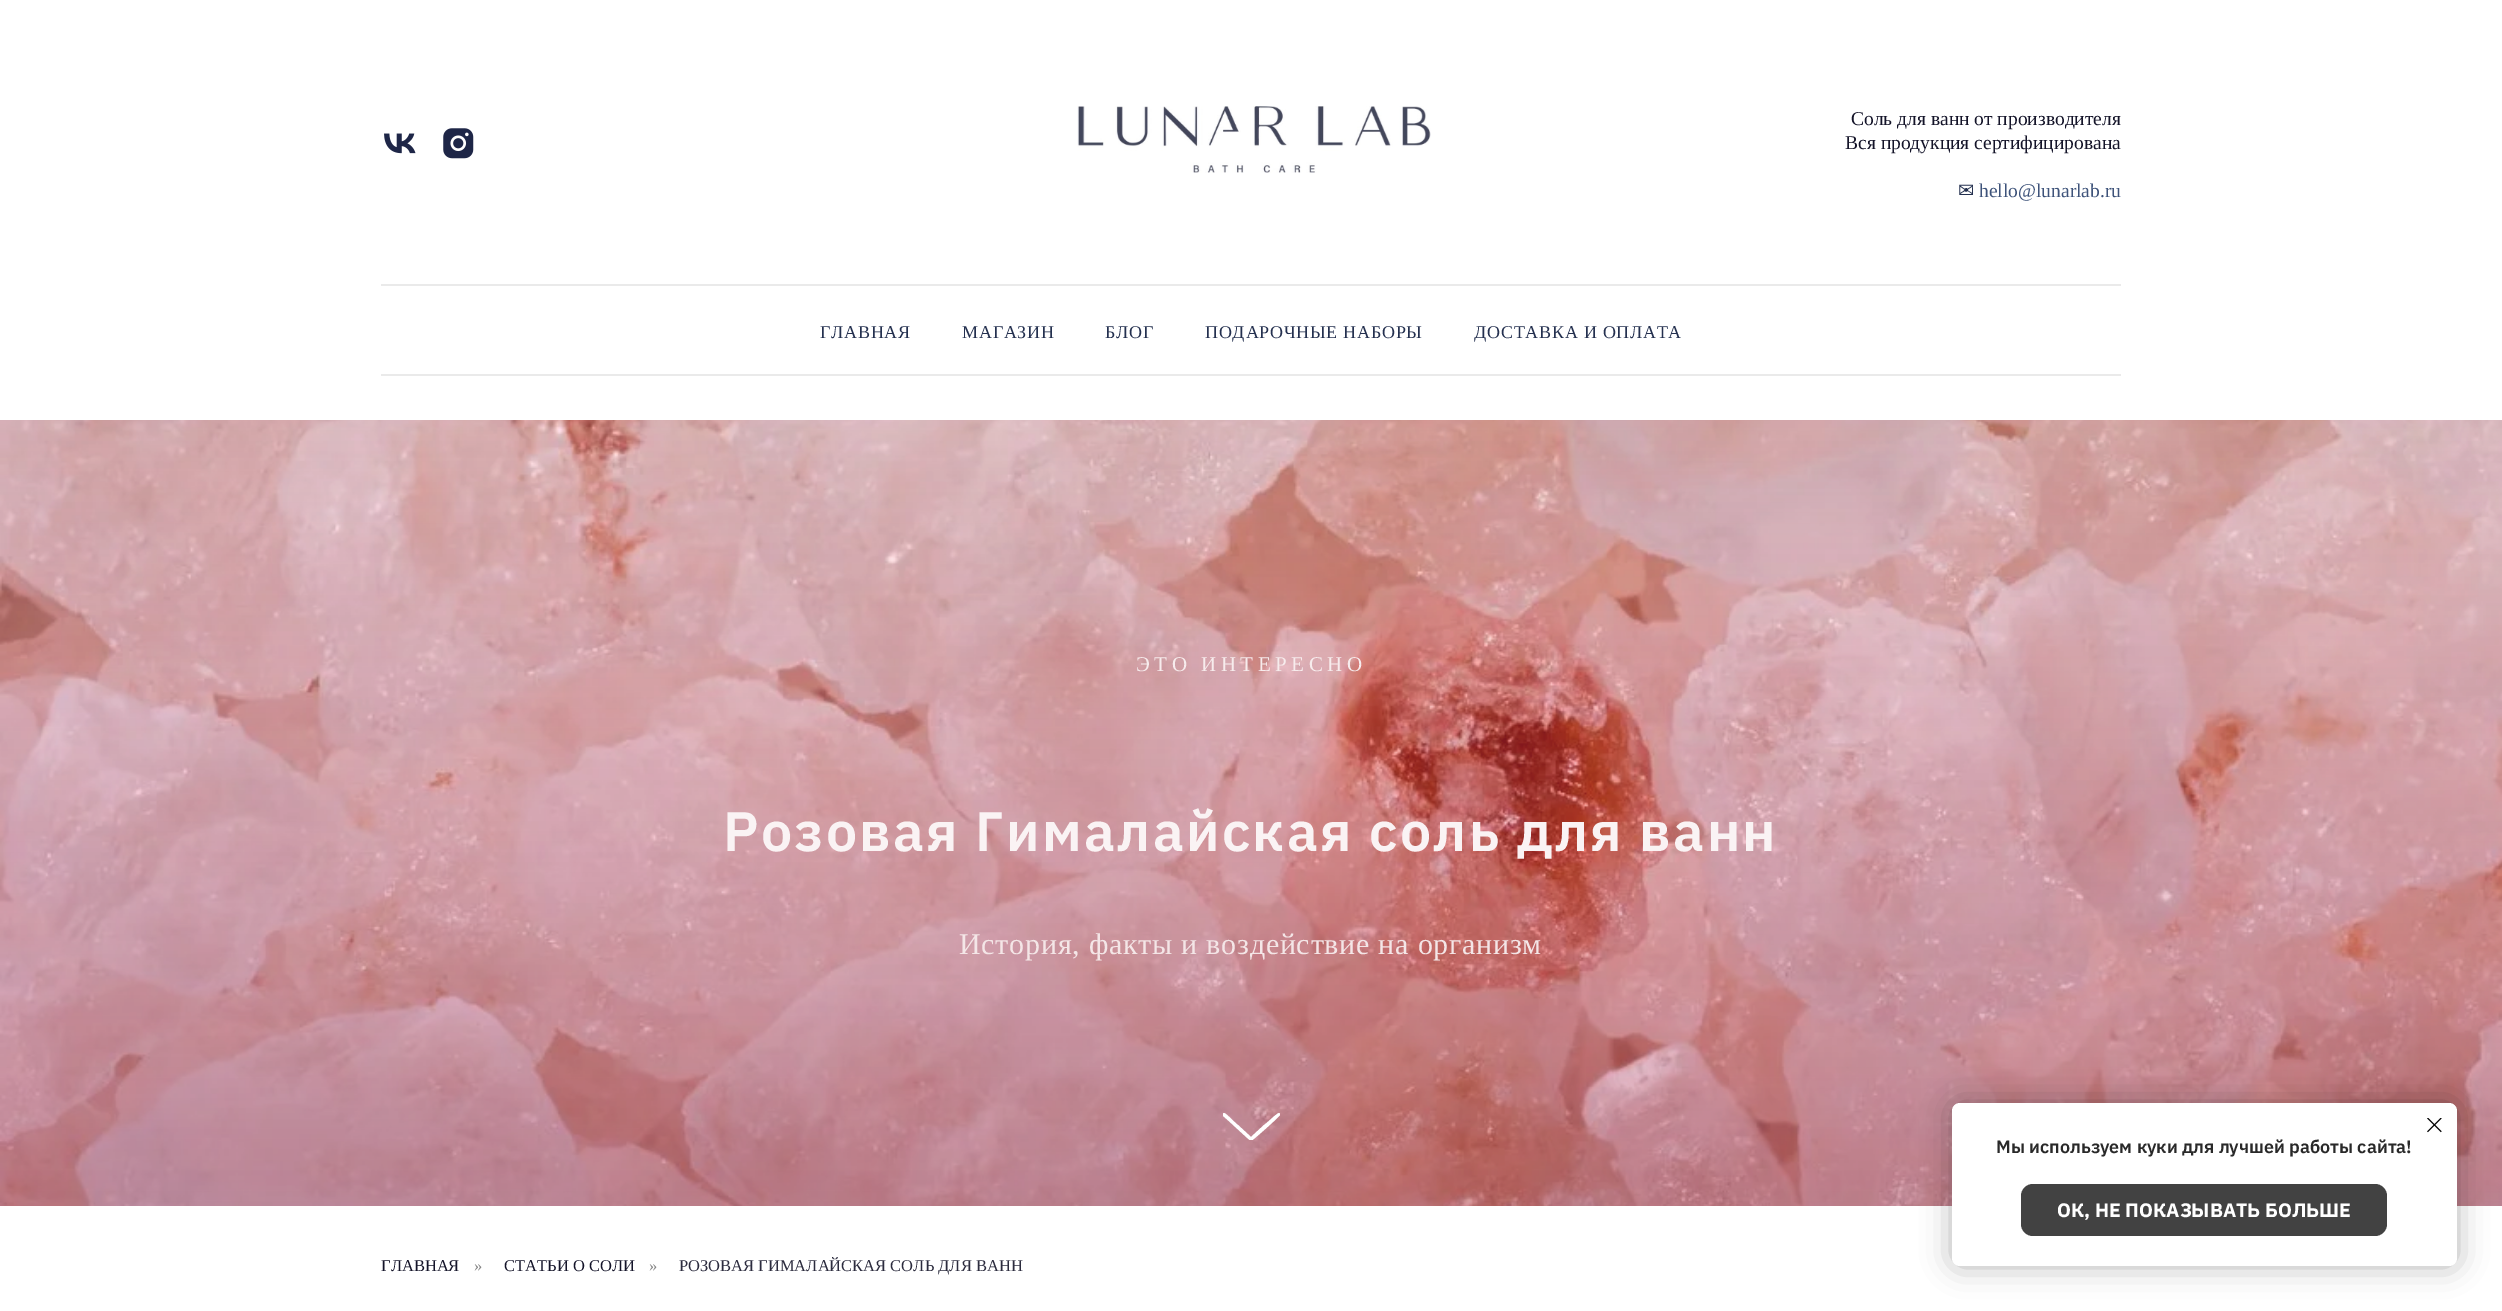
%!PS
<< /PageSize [2502 1311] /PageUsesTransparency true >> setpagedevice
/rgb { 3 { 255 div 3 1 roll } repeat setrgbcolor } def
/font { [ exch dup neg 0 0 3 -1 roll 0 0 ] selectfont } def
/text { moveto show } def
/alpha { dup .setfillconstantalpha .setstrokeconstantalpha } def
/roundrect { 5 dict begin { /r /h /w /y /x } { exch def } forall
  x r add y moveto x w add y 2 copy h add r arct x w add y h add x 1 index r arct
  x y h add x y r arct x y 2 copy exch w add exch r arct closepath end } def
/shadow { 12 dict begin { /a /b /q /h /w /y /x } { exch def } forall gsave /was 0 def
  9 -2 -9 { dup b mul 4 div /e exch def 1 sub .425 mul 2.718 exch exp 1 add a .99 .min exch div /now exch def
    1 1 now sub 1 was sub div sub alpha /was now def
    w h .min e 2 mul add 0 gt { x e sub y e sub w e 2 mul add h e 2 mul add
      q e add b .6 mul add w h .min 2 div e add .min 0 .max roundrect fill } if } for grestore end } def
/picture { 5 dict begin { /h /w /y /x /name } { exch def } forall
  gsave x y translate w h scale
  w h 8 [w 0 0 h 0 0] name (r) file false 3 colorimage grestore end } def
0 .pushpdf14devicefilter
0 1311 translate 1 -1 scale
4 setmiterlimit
255 255 255 rgb
0 0 2502 1311 rectfill
(img_01.rgb) 1077 106 354 67 picture
(img_02.rgb) 384 133 32 21 picture
(img_03.rgb) 443 128 31 31 picture
234 234 234 rgb
381 284 1740 2 rectfill
381 374 1740 2 rectfill
(img_04.rgb) 0 420 2502 786 picture
gsave
1223 1113 57 27 rectclip
255 255 255 rgb
1251 1141 moveto -1 0 -25 -23 -28 -25 rcurveto -1 -1 0 -3 1 -3 rcurveto 2 0 12 11 14 12 rcurveto 13 12 rlineto 13 -12 rlineto 2 -1 13 -12 15 -12 rcurveto 1 0 1 2 1 2 rcurveto -2 3 -28 26 -29 26 rcurveto closepath fill
grestore
0 0 0 rgb
1952 1103 505 163 8 15 0.3 shadow
255 255 255 rgb
1952 1103 505 163 8 roundrect fill
(img_05.rgb) 2427 1118 15 15 picture
66 66 66 rgb
2021 1184 366 52 12 roundrect fill
/LiberationSerif-Regular 19.5 font
20 20 41 rgb
(Соль для ванн от производителя) 1851 125 text
(Вся продукция сертифицирована) 1845 149 text
/DejaVuSans-Regular 19.5 font
36 48 79 rgb
(✉) 1958 197 text
/LiberationSerif-Regular 19.5 font
62 83 122 rgb
(hello@lunarlab.ru) 1979 197 text
/LiberationSerif-Regular 18 font
36 48 79 rgb
820 338 moveto 0.75 0 (ГЛАВНАЯ) ashow
962 338 moveto 0.75 0 (МАГАЗИН) ashow
1105 338 moveto 0.75 0 (БЛОГ) ashow
1205 338 moveto 0.75 0 (ПОДАРОЧНЫЕ НАБОРЫ) ashow
1474 338 moveto 0.75 0 (ДОСТАВКА И ОПЛАТА) ashow
/LiberationSerif-Regular 21 font
247 236 237 rgb
1136 671 moveto 4.5 0 (ЭТО ИНТЕРЕСНО) ashow
/IBMPlexSans-SemiBold 55.5 font
250 243 244 rgb
723 851 moveto 2.25 0 (Розовая Гималайская соль для ванн) ashow
/LiberationSerif-Regular 30 font
244 230 231 rgb
959 954 moveto 0.75 0 (История, факты и воздействие на организм) ashow
/IBMPlexSans-SemiBold 18 font
41 41 41 rgb
(Мы используем куки для лучшей работы сайта!) 1996 1153 text
/IBMPlexSans-Bold 19.5 font
255 255 255 rgb
(ОК, НЕ ПОКАЗЫВАТЬ БОЛЬШЕ) 2057 1217 text
/LiberationSerif-Regular 16.5 font
20 20 41 rgb
(ГЛАВНАЯ) 381 1271 text
133 133 133 rgb
(») 474 1271 text
20 20 41 rgb
(СТАТЬИ О СОЛИ) 504 1271 text
133 133 133 rgb
(») 649 1271 text
44 44 62 rgb
(РОЗОВАЯ ГИМАЛАЙСКАЯ СОЛЬ ДЛЯ ВАНН) 679 1271 text
.poppdf14devicefilter showpage
